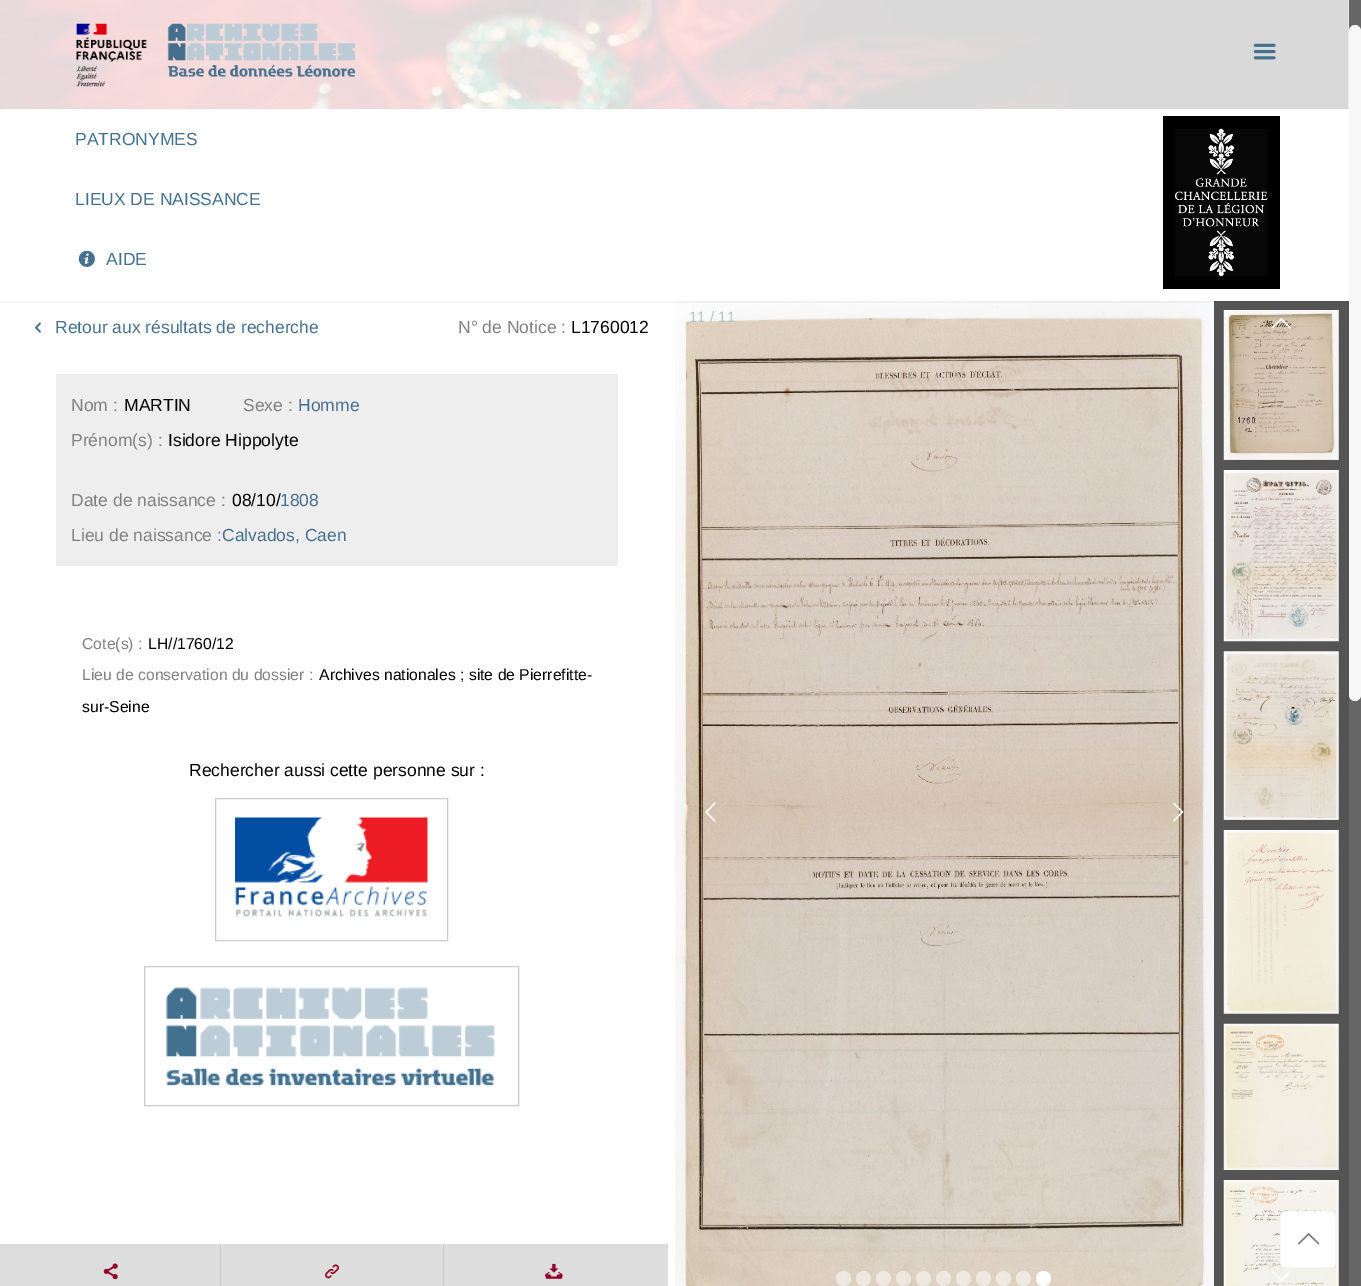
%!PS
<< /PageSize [1361 1286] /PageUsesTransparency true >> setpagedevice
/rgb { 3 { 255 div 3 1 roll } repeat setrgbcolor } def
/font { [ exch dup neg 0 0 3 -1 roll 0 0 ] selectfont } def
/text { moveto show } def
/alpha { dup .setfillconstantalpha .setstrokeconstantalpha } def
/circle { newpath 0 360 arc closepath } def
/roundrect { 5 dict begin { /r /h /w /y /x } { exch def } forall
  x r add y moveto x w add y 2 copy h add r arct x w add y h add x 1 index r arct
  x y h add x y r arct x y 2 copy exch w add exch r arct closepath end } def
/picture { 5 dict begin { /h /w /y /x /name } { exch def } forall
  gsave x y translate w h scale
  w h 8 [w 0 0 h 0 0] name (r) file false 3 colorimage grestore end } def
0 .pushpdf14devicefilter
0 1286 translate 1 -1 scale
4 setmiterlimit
255 255 255 rgb
0 0 1361 1286 rectfill
(img_01.rgb) 0 0 1349 109 picture
0.85 alpha
0 0 1349 109 rectfill
1 alpha
(img_02.rgb) 76 23 279 64 picture
(img_03.rgb) 1253 43 23 17 picture
0 0 0 rgb
1163 116 117 173 rectfill
(img_04.rgb) 1175 128 93 149 picture
(img_05.rgb) 78 250 17 17 picture
(img_06.rgb) 675 301 539 985 picture
84 84 84 rgb
1214 301 135 985 rectfill
0.04 alpha
0 0 0 rgb
0 301 1348 2 rectfill
1 alpha
(img_07.rgb) 705 802 11 20 picture
(img_08.rgb) 1172 802 12 20 picture
0.5 alpha
255 255 255 rgb
843.5 1278.5 7.5 circle fill
863.5 1278.5 7.5 circle fill
883.5 1278.5 7.5 circle fill
903.5 1278.5 7.5 circle fill
923.5 1278.5 7.5 circle fill
943.5 1278.5 7.5 circle fill
963.5 1278.5 7.5 circle fill
983.5 1278.5 7.5 circle fill
1003.5 1278.5 7.5 circle fill
1023.5 1278.5 7.5 circle fill
1 alpha
1043.5 1278.5 7.5 circle fill
(img_09.rgb) 1223 310 116 150 picture
(img_10.rgb) 1223 470 116 172 picture
(img_11.rgb) 1223 651 116 169 picture
(img_12.rgb) 1223 830 116 184 picture
(img_13.rgb) 1223 1023 116 147 picture
(img_14.rgb) 1223 1180 116 106 picture
(img_15.rgb) 1271 318 20 11 picture
(img_16.rgb) 1271 1270 20 11 picture
(img_17.rgb) 35 322 6 11 picture
238 238 238 rgb
56 374 562 192 rectfill
204 204 204 rgb
215.5 798.5 232 142 rectstroke
(img_18.rgb) 235 817 193 100 picture
144.5 966.5 374 139 rectstroke
(img_19.rgb) 166 987 330 99 picture
221 221 221 rgb
0 1244 668 42 rectfill
(img_20.rgb) 103 1263 15 17 picture
204 204 204 rgb
443 1244 1 42 rectfill
220 1244 1 42 rectfill
(img_21.rgb) 325 1264 14 15 picture
(img_22.rgb) 545 1263 18 16 picture
255 255 255 rgb
1280 1211 56 57 6 roundrect fill
0.03 alpha
0 0 0 rgb
1280.5 1211.5 55 56 rectstroke
1 alpha
(img_23.rgb) 1297 1233 23 12 picture
102 102 102 rgb
1349 0 12 1286 rectfill
248 248 248 rgb
1349 25 12 676 6 roundrect fill
/LiberationSans-Regular 17.5 font
68 112 142 rgb
(PATRONYMES) 75 145 text
(LIEUX DE NAISSANCE) 75 205 text
(AIDE) 106 265 text
/LiberationSans-Regular 15 font
179 194 205 rgb
(11 / 11) 689 322 text
/LiberationSans-Regular 17.5 font
68 112 142 rgb
(Retour aux résultats de recherche) 55 333 text
128 128 128 rgb
(N° de Notice :) 458 333 text
0 0 0 rgb
(L1760012) 571 333 text
128 128 128 rgb
(Nom :) 71 411 text
0 0 0 rgb
(MARTIN) 124 411 text
128 128 128 rgb
(Sexe :) 243 411 text
68 112 142 rgb
(Homme) 298 411 text
128 128 128 rgb
(Prénom\(s\) :) 71 446 text
0 0 0 rgb
(Isidore Hippolyte) 168 446 text
128 128 128 rgb
(Date de naissance :) 71 506 text
0 0 0 rgb
(08/10/) 232 506 text
68 112 142 rgb
(1808) 280 506 text
128 128 128 rgb
(Lieu de naissance :) 71 541 text
68 112 142 rgb
(Calvados, Caen) 222 541 text
/LiberationSans-Regular 15.75 font
128 128 128 rgb
(Cote\(s\) :) 82 649 text
0 0 0 rgb
(LH//1760/12) 148 649 text
(Archives nationales ; site de Pierrefitte-) 319 680 text
(sur-Seine) 82 712 text
128 128 128 rgb
(Lieu de conservation du dossier :) 82 680 text
/LiberationSans-Regular 17.5 font
0 0 0 rgb
(Rechercher aussi cette personne sur :) 189 776 text
.poppdf14devicefilter showpage
